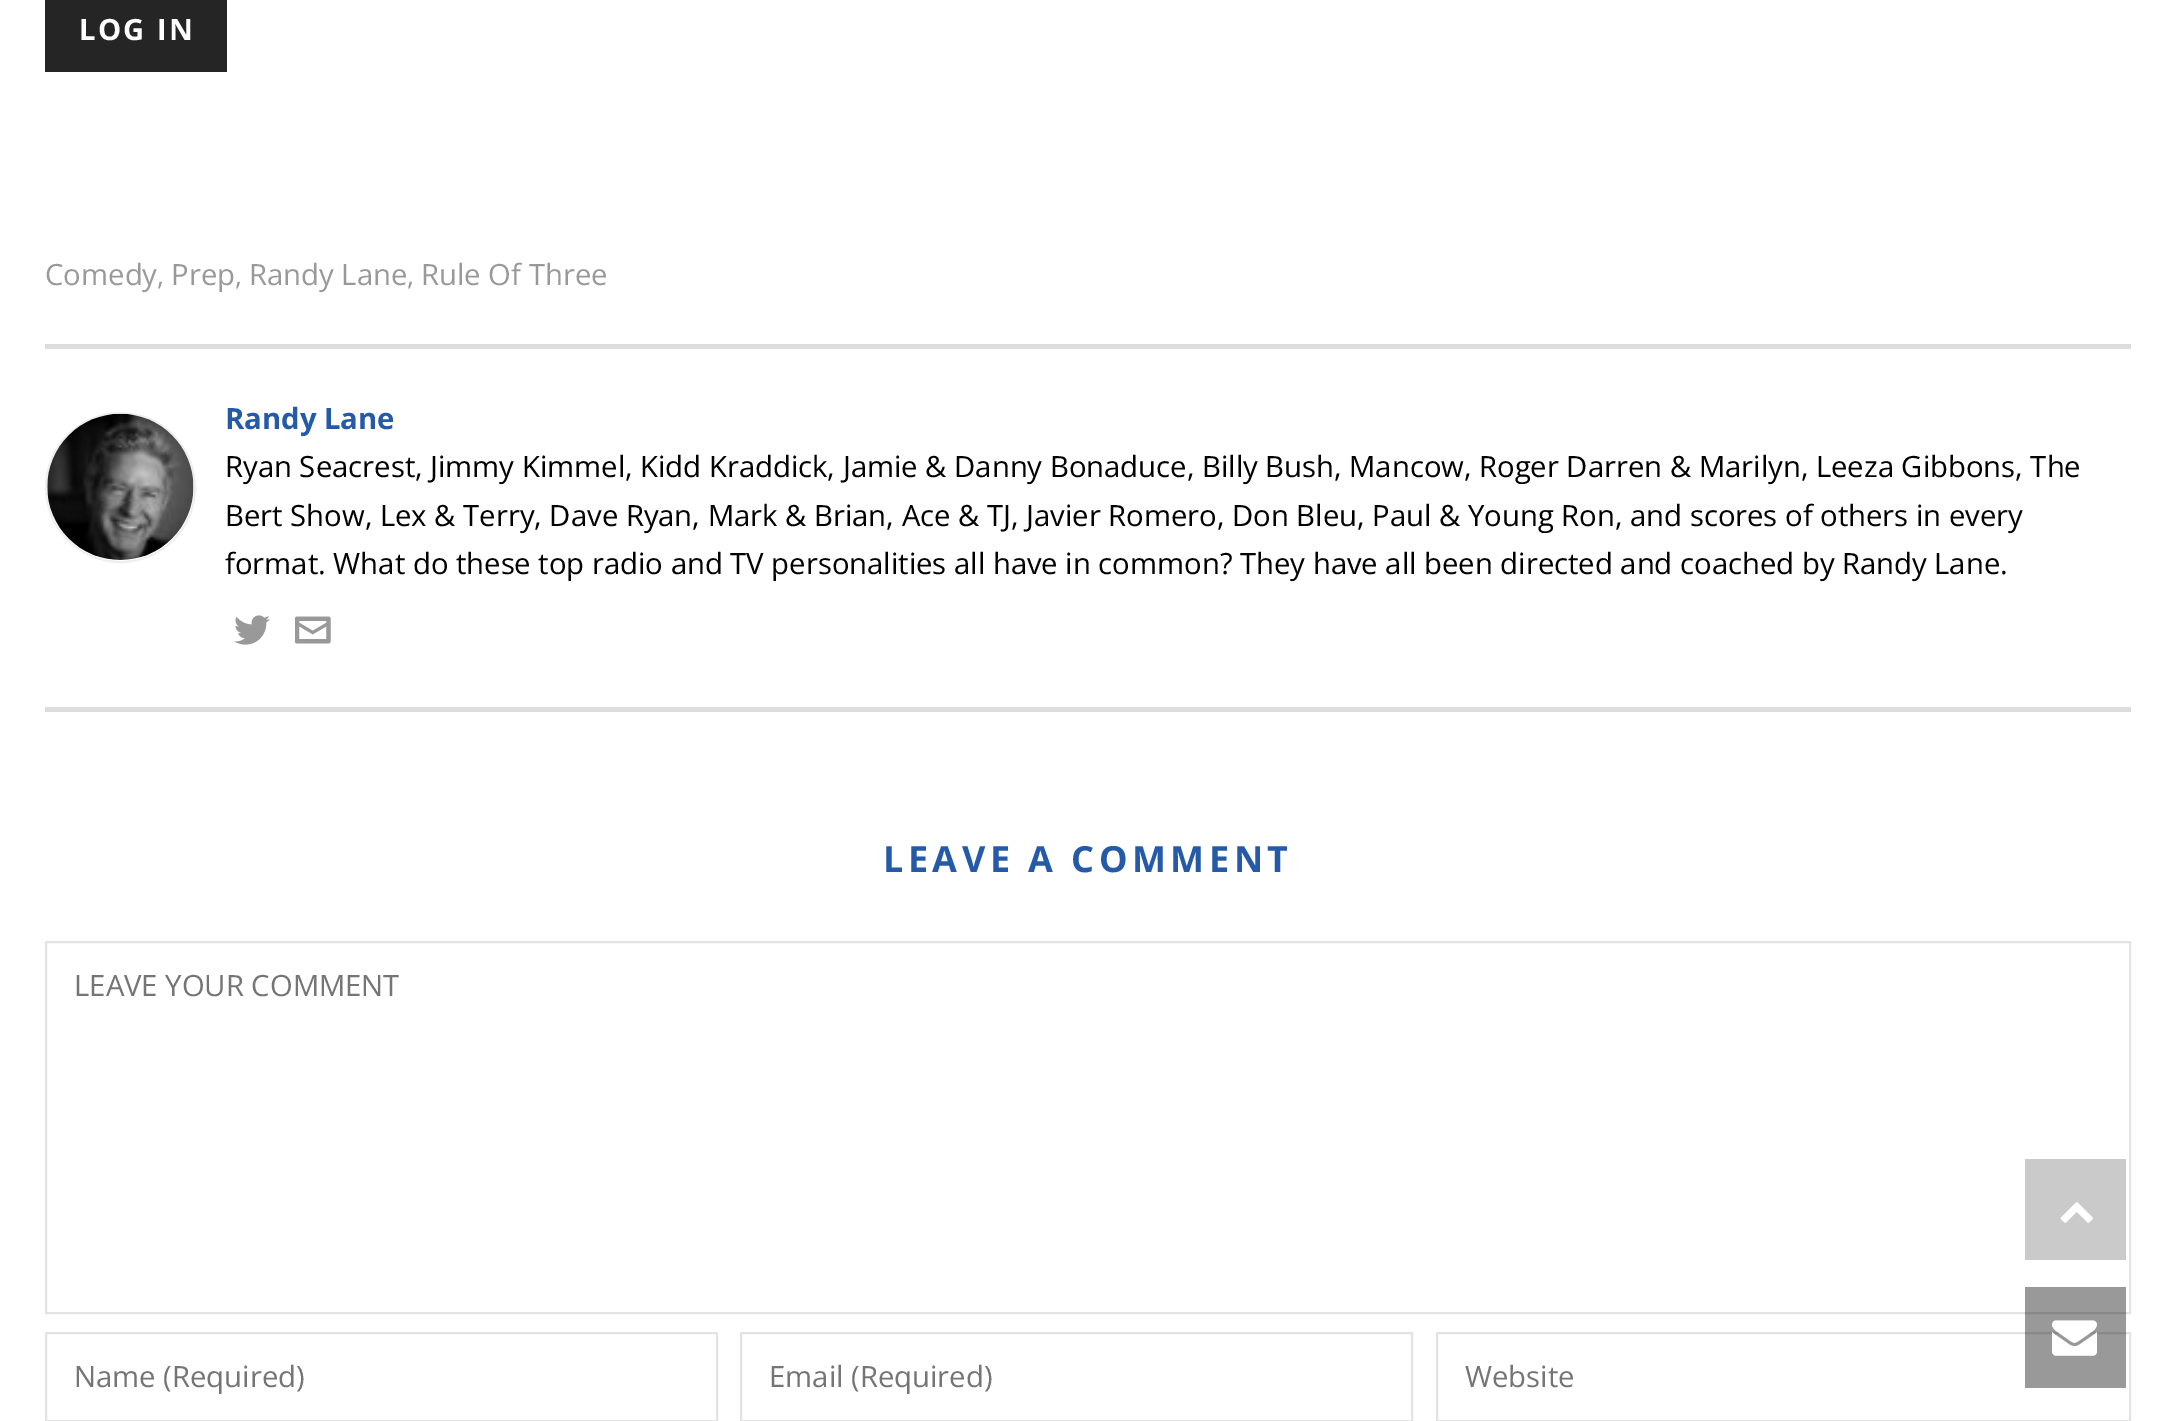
%!PS
<< /PageSize [2174 1421] /PageUsesTransparency true >> setpagedevice
/rgb { 3 { 255 div 3 1 roll } repeat setrgbcolor } def
/font { [ exch dup neg 0 0 3 -1 roll 0 0 ] selectfont } def
/text { moveto show } def
/alpha { dup .setfillconstantalpha .setstrokeconstantalpha } def
/circle { newpath 0 360 arc closepath } def
/picture { 5 dict begin { /h /w /y /x /name } { exch def } forall
  gsave x y translate w h scale
  w h 8 [w 0 0 h 0 0] name (r) file false 3 colorimage grestore end } def
0 .pushpdf14devicefilter
0 1421 translate 1 -1 scale
4 setmiterlimit
255 255 255 rgb
0 0 2174 1421 rectfill
37 37 37 rgb
45 0 182 72 rectfill
221 221 221 rgb
45 344 2086 5 rectfill
45 707 2086 5 rectfill
238 238 238 rgb
2 setlinewidth
120.5 487.5 74.5 circle stroke
(img_01.rgb) 47 413 147 147 picture
(img_02.rgb) 234 615 36 30 picture
(img_03.rgb) 295 616 36 28 picture
227 227 227 rgb
46 942 2084 371 rectstroke
46 1333 671 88 rectstroke
741 1333 671 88 rectstroke
1437 1333 693 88 rectstroke
202 202 202 rgb
2025 1159 101 101 rectfill
(img_04.rgb) 2060 1202 33 21 picture
0.4 alpha
0 0 0 rgb
2025 1287 101 101 rectfill
1 alpha
(img_05.rgb) 2052 1320 45 36 picture
/OpenSans-Bold 29.25 font
255 255 255 rgb
79 40 moveto 2.25 0 (LOG IN) ashow
/OpenSans-Regular 29.25 font
153 153 153 rgb
(Comedy) 45 285 text
/OpenSans-Regular 27 font
(,) 157 285 text
/OpenSans-Regular 29.25 font
(Prep) 171 285 text
/OpenSans-Regular 27 font
(,) 235 285 text
/OpenSans-Regular 29.25 font
(Randy Lane) 249 285 text
/OpenSans-Regular 27 font
(,) 407 285 text
/OpenSans-Regular 29.25 font
(Rule Of Three) 421 285 text
/OpenSans-Bold 29.25 font
37 90 169 rgb
(Randy Lane) 225 429 text
/OpenSans-Regular 29.25 font
0 0 0 rgb
(Ryan Seacrest, Jimmy Kimmel, Kidd Kraddick, Jamie & Danny Bonaduce, Billy Bush, Mancow, Roger Darren & Marilyn, Leeza Gibbons, The) 225 477 text
(Bert Show, Lex & Terry, Dave Ryan, Mark & Brian, Ace & TJ, Javier Romero, Don Bleu, Paul & Young Ron, and scores of others in every) 225 526 text
(format. What do these top radio and TV personalities all have in common? They have all been directed and coached by Randy Lane.) 225 574 text
/OpenSans-Bold 36 font
37 90 169 rgb
883 872 moveto 4.5 0 (LEAVE A COMMENT) ashow
/OpenSans-Regular 29.25 font
117 117 117 rgb
(LEAVE YOUR COMMENT) 74 996 text
(Name \(Required\)) 74 1387 text
(Email \(Required\)) 769 1387 text
(Website) 1465 1387 text
.poppdf14devicefilter showpage
